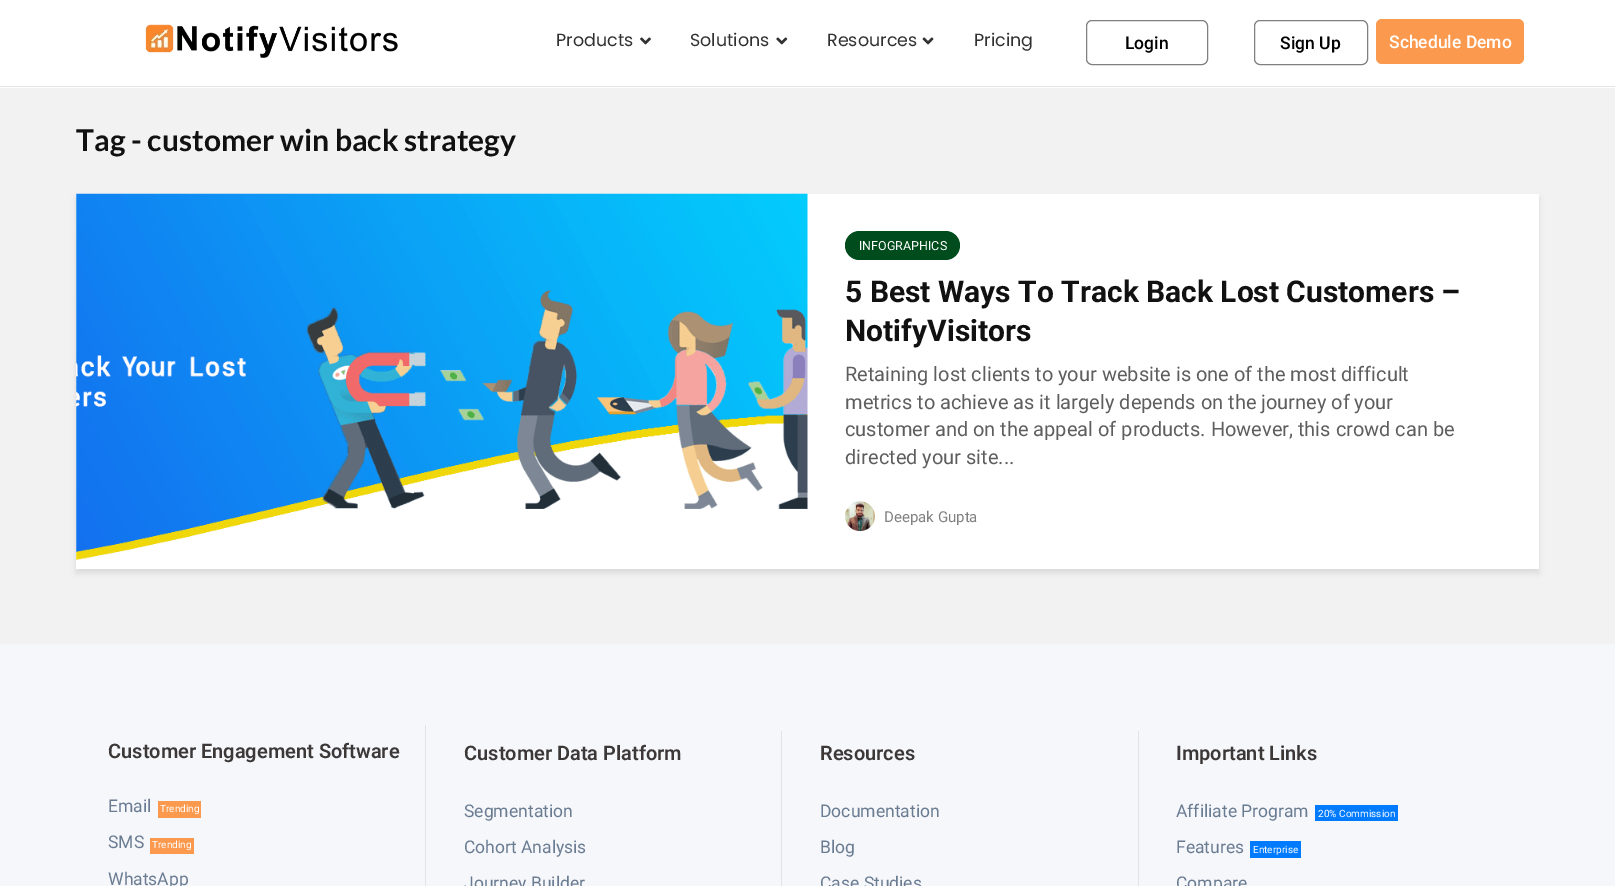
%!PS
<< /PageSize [1615 886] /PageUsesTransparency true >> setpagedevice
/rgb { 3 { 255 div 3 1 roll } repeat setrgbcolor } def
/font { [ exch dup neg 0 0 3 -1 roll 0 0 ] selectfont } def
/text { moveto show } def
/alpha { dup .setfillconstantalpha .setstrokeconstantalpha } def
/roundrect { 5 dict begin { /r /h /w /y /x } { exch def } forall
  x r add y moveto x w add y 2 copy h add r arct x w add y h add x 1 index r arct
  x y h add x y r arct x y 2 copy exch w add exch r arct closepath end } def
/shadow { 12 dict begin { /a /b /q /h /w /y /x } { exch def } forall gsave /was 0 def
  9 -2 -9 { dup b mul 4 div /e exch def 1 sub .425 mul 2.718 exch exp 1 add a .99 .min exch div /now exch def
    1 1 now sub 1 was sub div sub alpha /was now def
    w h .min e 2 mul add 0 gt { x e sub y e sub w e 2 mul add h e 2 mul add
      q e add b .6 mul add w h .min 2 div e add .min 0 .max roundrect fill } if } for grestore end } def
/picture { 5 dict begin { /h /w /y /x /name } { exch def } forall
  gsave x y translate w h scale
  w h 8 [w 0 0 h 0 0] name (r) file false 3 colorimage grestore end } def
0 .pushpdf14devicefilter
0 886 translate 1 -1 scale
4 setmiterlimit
242 242 242 rgb
0 0 1615 886 rectfill
255 255 255 rgb
0 0 1615 88 rectfill
229 229 229 rgb
0 86 1615 1 rectfill
(img_01.rgb) 145 24 253 34 picture
(img_02.rgb) 640 37 11 8 picture
(img_03.rgb) 776 37 12 8 picture
(img_04.rgb) 922 37 12 8 picture
128 128 128 rgb
1086.5 20.5 121 44 5.5 roundrect stroke
1254.5 20.5 113 44 5.5 roundrect stroke
251 154 78 rgb
1376 19 148 45 6 roundrect fill
0 1 1 rgb
76 198 1463 375 0 3 0.1 shadow
255 255 255 rgb
76 194 1463 375 rectfill
(img_05.rgb) 76 193 732 367 picture
0 76 28 rgb
845 231 115 29 14.5 roundrect fill
(img_06.rgb) 845 501 30 31 picture
246 247 251 rgb
0 644 1615 242 rectfill
226 227 230 rgb
425 725 1 161 rectfill
251 154 78 rgb
158 801 43 17 rectfill
150 838 44 16 rectfill
226 227 230 rgb
781 731 1 155 rectfill
1138 731 1 155 rectfill
0 123 255 rgb
1315 805 83 16 rectfill
1250 841 51 17 rectfill
/Poppins-Regular 17.5 font
49 49 49 rgb
(Products) 556 46 text
(Solutions) 690 46 text
(Resources) 827 46 text
(Pricing) 974 46 text
/Roboto-Medium 17.5 font
0 0 0 rgb
(Login) 1125 49 text
(Sign Up) 1280 49 text
255 255 255 rgb
(Schedule Demo) 1389 48 text
/Lato-Bold 30 font
17 17 17 rgb
(Tag - customer win back strategy) 76 151 text
/Roboto-Regular 12.5 font
255 255 255 rgb
(INFOGRAPHICS) 859 250 text
/Roboto-Bold 30 font
17 17 17 rgb
(5 Best Ways To Track Back Lost Customers –) 845 302 text
(NotifyVisitors) 845 341 text
/Roboto-Regular 20 font
94 94 94 rgb
(Retaining lost clients to your website is one of the most difficult) 845 381 text
(metrics to achieve as it largely depends on the journey of your) 845 409 text
(customer and on the appeal of products. However, this crowd can be) 845 436 text
(directed your site...) 845 464 text
/Roboto-Regular 15 font
129 129 129 rgb
(Deepak Gupta) 884 522 text
/Roboto-SemiBold 20 font
60 56 56 rgb
(Customer Engagement Software) 108 758 text
/Roboto-Regular 17.5 font
106 124 146 rgb
(Email) 108 812 text
/Roboto-Regular 10 font
255 255 255 rgb
(Trending) 160 812 text
/Roboto-Regular 17.5 font
106 124 146 rgb
(SMS) 108 848 text
/Roboto-Regular 10 font
255 255 255 rgb
(Trending) 152 848 text
/Roboto-Regular 17.5 font
106 124 146 rgb
(WhatsApp) 108 885 text
/Roboto-SemiBold 20 font
60 56 56 rgb
(Customer Data Platform) 464 760 text
/Roboto-Regular 17.5 font
106 124 146 rgb
(Segmentation) 464 817 text
(Cohort Analysis) 464 853 text
(Journey Builder) 464 889 text
/Roboto-SemiBold 20 font
60 56 56 rgb
(Resources) 820 760 text
/Roboto-Regular 17.5 font
106 124 146 rgb
(Documentation) 820 817 text
(Blog) 820 853 text
(Case Studies) 820 889 text
/Roboto-SemiBold 20 font
60 56 56 rgb
(Important Links) 1176 760 text
/Roboto-Regular 17.5 font
106 124 146 rgb
(Affiliate Program) 1176 817 text
/Roboto-Regular 10 font
255 255 255 rgb
(20% Commission) 1318 817 text
/Roboto-Regular 17.5 font
106 124 146 rgb
(Features) 1176 853 text
/Roboto-Regular 10 font
255 255 255 rgb
(Enterprise) 1253 853 text
/Roboto-Regular 17.5 font
106 124 146 rgb
(Compare) 1176 889 text
.poppdf14devicefilter showpage
